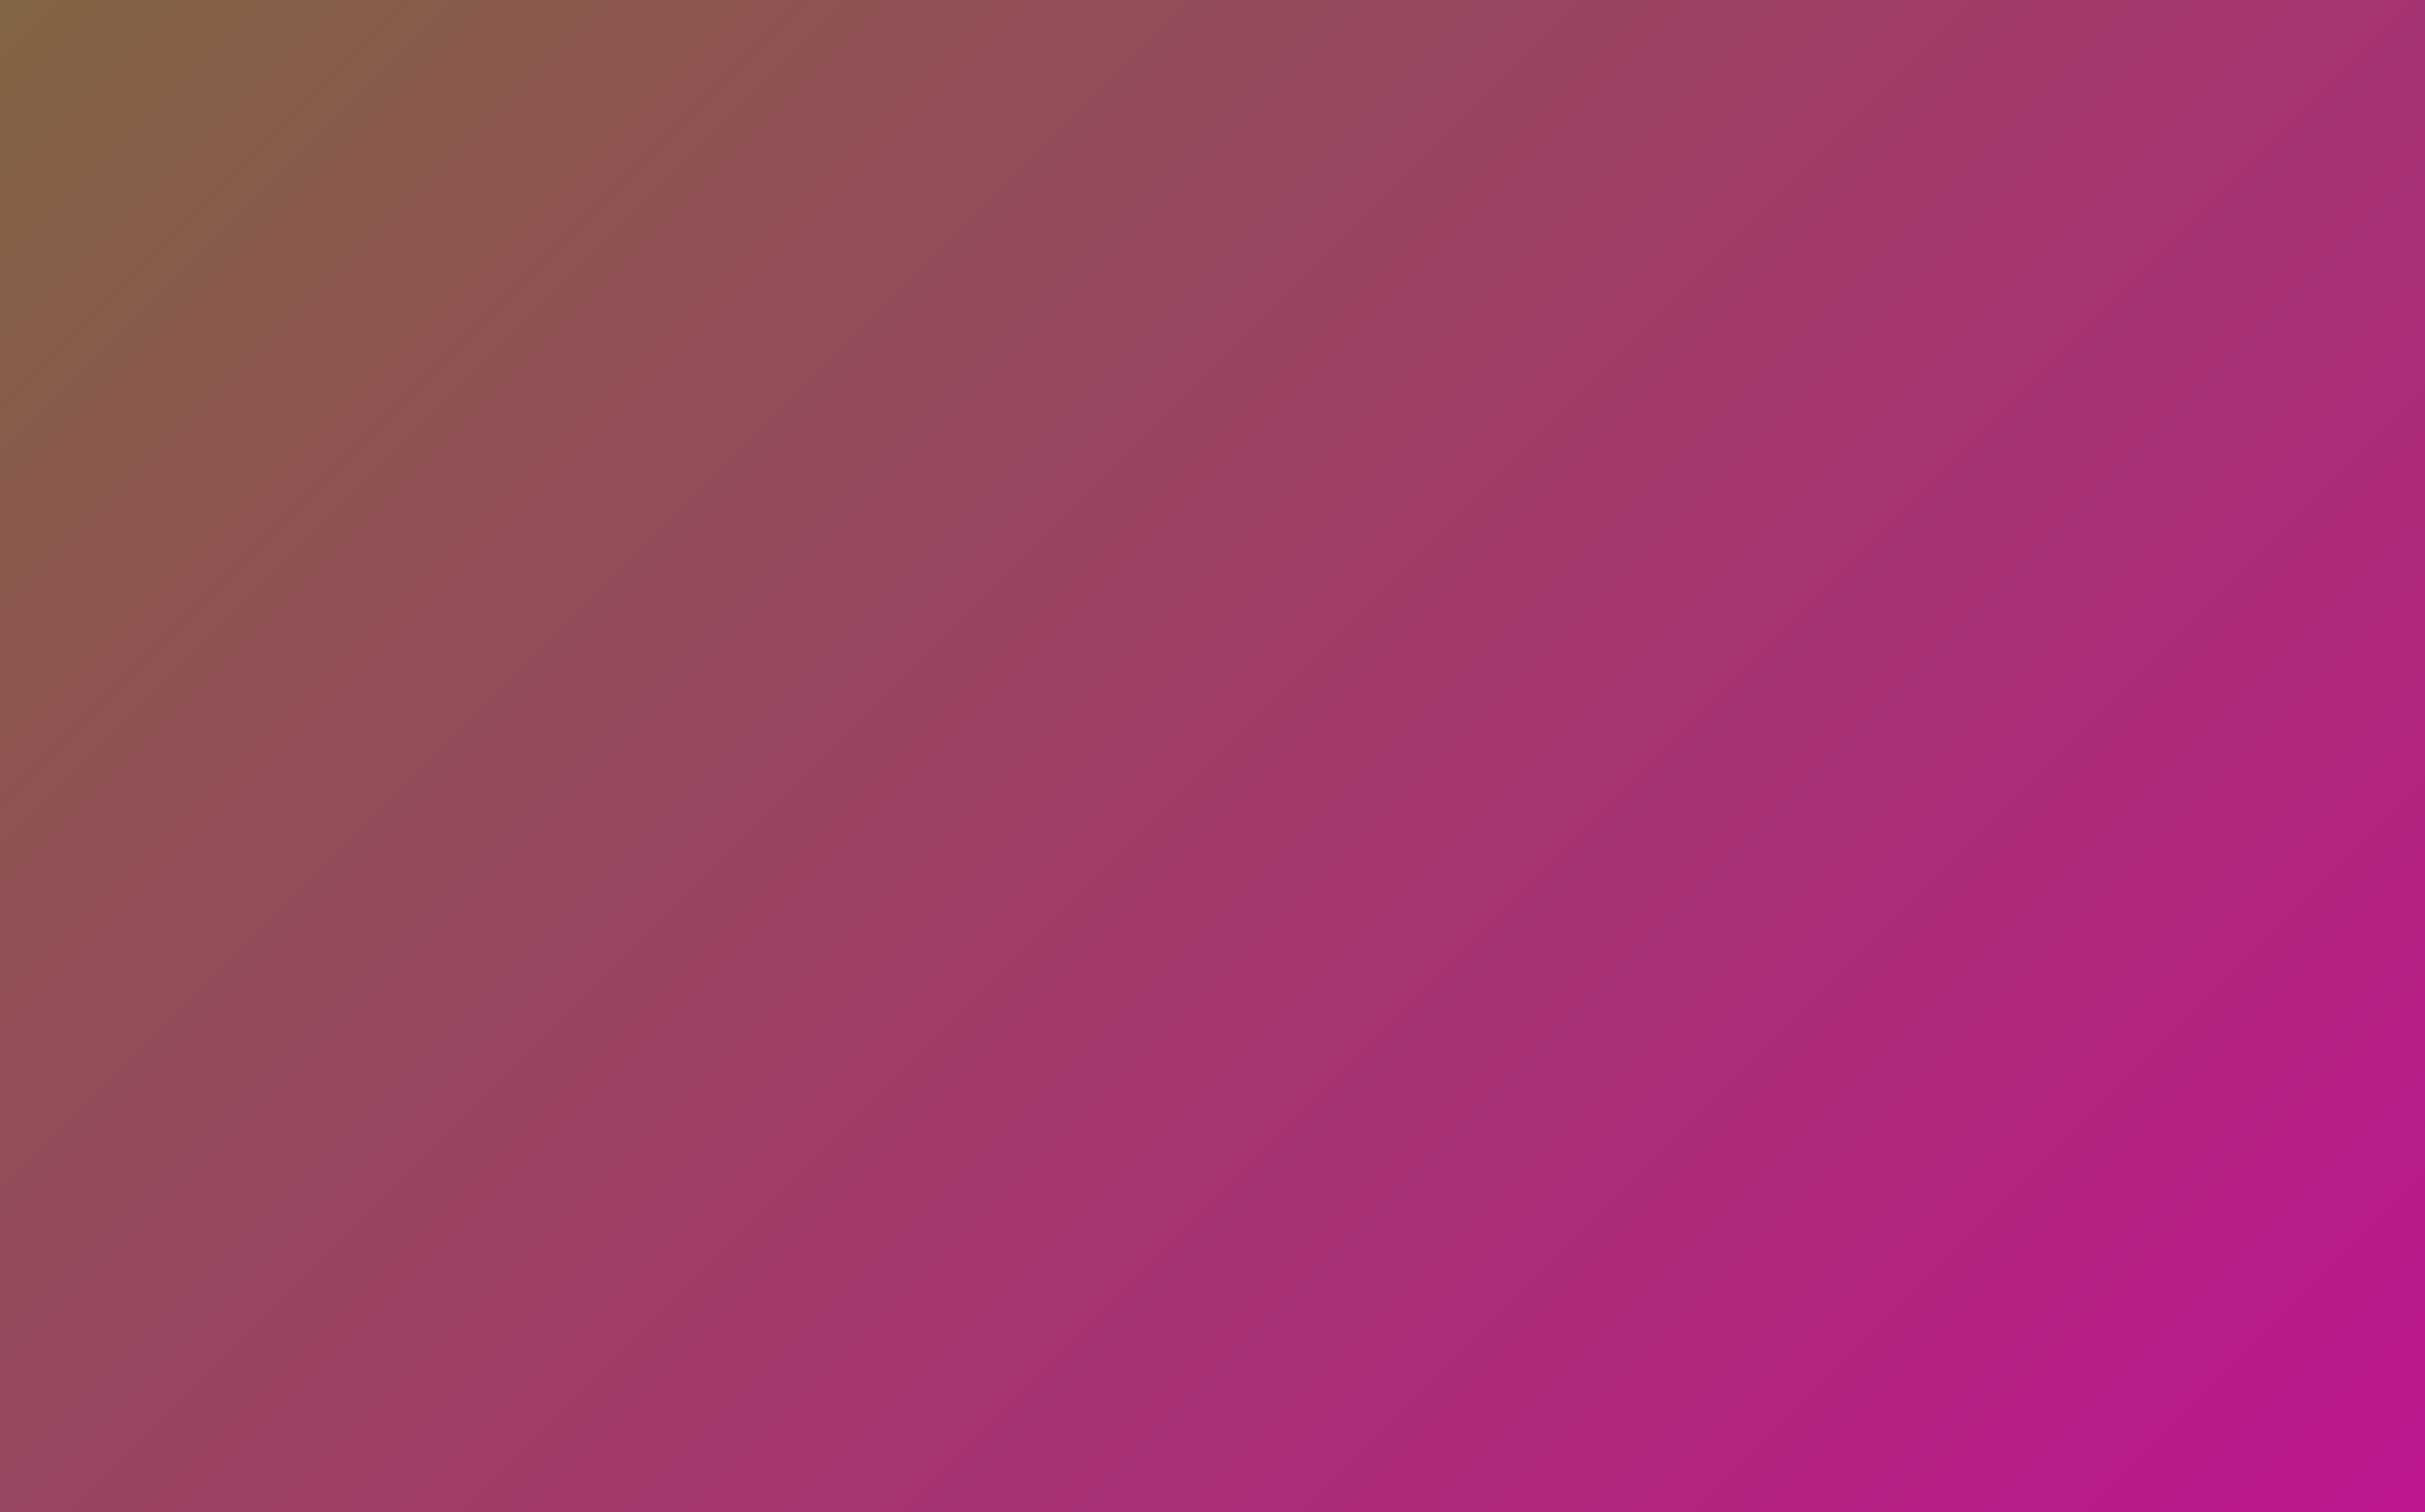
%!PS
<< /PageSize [2425 1512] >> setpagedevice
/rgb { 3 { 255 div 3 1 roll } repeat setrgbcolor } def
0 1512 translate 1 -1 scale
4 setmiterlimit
255 255 255 rgb
0 0 2425 1512 rectfill
gsave 0 0 moveto 2425 0 rlineto 0 1512 rlineto -2425 0 rlineto closepath clip newpath
<< /ShadingType 2 /ColorSpace /DeviceRGB /Coords [228 -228 2197 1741] /Extend [true true] /Function << /FunctionType 2 /Domain [0 1] /C0 [0.514 0.396 0.263] /C1 [0.745 0.086 0.561] /N 1 >> >> shfill grestore
showpage
